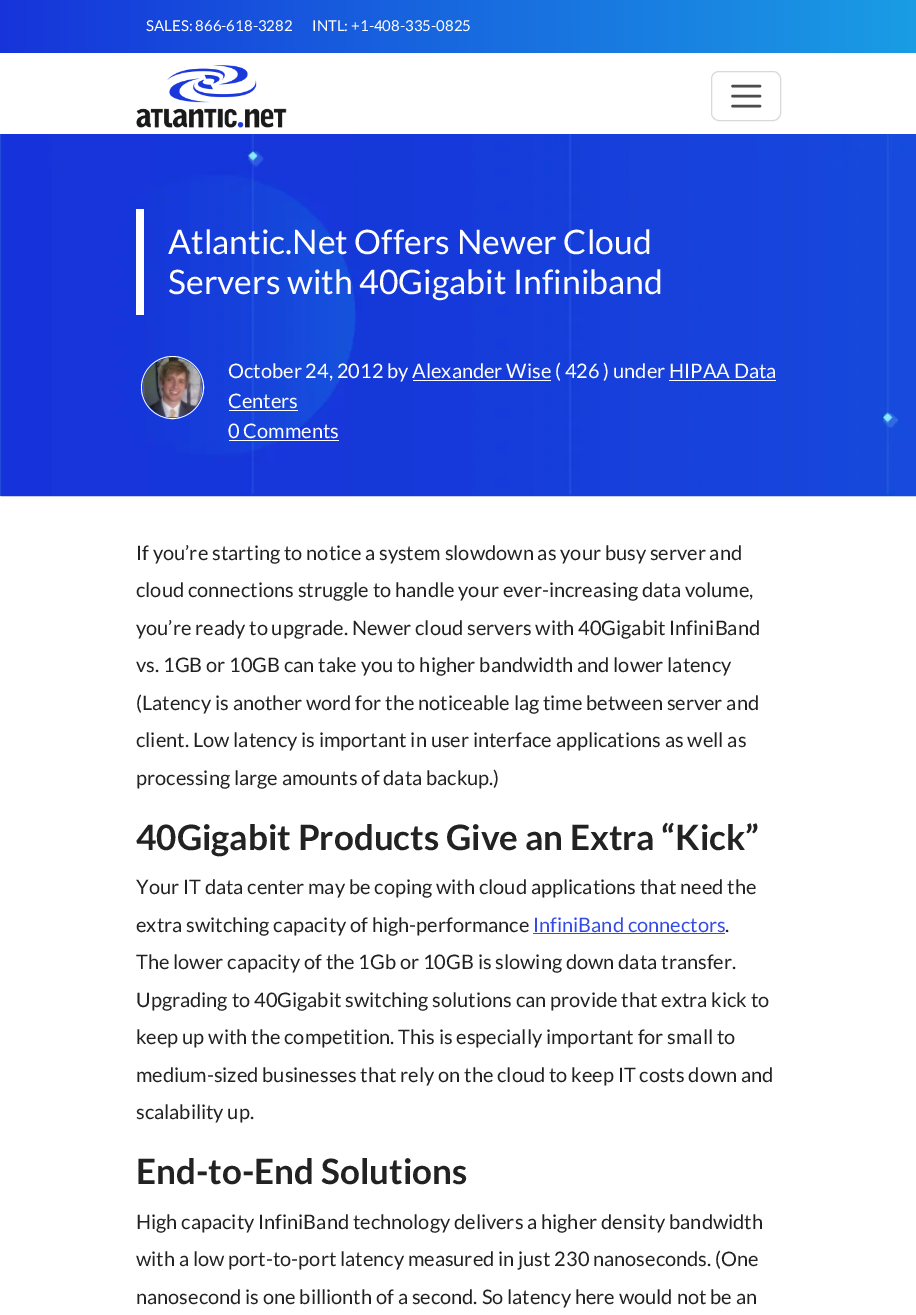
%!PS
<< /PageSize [916 1315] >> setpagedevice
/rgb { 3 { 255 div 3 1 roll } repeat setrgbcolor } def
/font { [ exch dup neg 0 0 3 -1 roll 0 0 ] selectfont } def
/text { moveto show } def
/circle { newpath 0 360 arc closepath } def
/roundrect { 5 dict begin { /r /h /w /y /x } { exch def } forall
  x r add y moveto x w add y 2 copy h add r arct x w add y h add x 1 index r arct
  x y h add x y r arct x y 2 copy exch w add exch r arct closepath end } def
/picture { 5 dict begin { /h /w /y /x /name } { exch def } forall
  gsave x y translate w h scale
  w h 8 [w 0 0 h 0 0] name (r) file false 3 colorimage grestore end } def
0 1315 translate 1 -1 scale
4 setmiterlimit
255 255 255 rgb
0 0 916 1315 rectfill
gsave 0 0 moveto 916 0 rlineto 0 53 rlineto -916 0 rlineto closepath clip newpath
<< /ShadingType 2 /ColorSpace /DeviceRGB /Coords [0 26 916 26] /Extend [true true] /Function << /FunctionType 2 /Domain [0 1] /C0 [0.086 0.204 0.855] /C1 [0.102 0.616 0.894] /N 1 >> >> shfill grestore
(img_01.rgb) 136 65 151 63 picture
217 217 217 rgb
711.5 71.5 69 49 7.5 roundrect stroke
76 76 76 rgb
2.5 setlinewidth
1 setlinecap
732.5 86 moveto 27.5 0 rlineto 732.5 96 moveto 27.5 0 rlineto 732.5 106 moveto 27.5 0 rlineto stroke
42 87 217 rgb
0 134 2 362 rectfill
(img_02.rgb) 0 134 916 363 picture
255 255 255 rgb
136 209 8 106 rectfill
1 setlinewidth
0 setlinecap
172.5 387.5 31 circle stroke
(img_03.rgb) 142 357 61 61 picture
413 380 138 1 rectfill
669 380 107 1 rectfill
229 410 69 1 rectfill
229 440 110 1 rectfill
52 76 229 rgb
533 933 192 1 rectfill
/Lato-Regular 15 font
255 255 255 rgb
(SALES: 866-618-3282) 146 31 text
(INTL: +1-408-335-0825) 312 31 text
/Lato-Regular 33.75 font
(Atlantic.Net Offers Newer Cloud) 168 254 text
(Servers with 40Gigabit Infiniband) 168 294 text
/Lato-Regular 20 font
(October 24, 2012 by Alexander Wise \( 426 \) under HIPAA Data) 228 378 text
(Centers) 228 408 text
(0 Comments) 228 438 text
34 34 34 rgb
(If you’re starting to notice a system slowdown as your busy server and) 136 560 text
(cloud connections struggle to handle your ever-increasing data volume,) 136 597 text
(you’re ready to upgrade. Newer cloud servers with 40Gigabit InfiniBand) 136 635 text
(vs. 1GB or 10GB can take you to higher bandwidth and lower latency) 136 672 text
(\(Latency is another word for the noticeable lag time between server and) 136 710 text
(client. Low latency is important in user interface applications as well as) 136 747 text
(processing large amounts of data backup.\)) 136 785 text
/Lato-Bold 35 font
(40Gigabit Products Give an Extra “Kick”) 136 850 text
/Lato-Regular 20 font
(Your IT data center may be coping with cloud applications that need the) 136 894 text
(extra switching capacity of high-performance) 136 932 text
52 76 229 rgb
(InfiniBand connectors) 533 932 text
34 34 34 rgb
(.) 725 932 text
(The lower capacity of the 1Gb or 10GB is slowing down data transfer.) 136 969 text
(Upgrading to 40Gigabit switching solutions can provide that extra kick to) 136 1007 text
(keep up with the competition. This is especially important for small to) 136 1044 text
(medium-sized businesses that rely on the cloud to keep IT costs down and) 136 1082 text
(scalability up.) 136 1119 text
/Lato-Bold 35 font
(End-to-End Solutions) 136 1184 text
/Lato-Regular 20 font
(High capacity InfiniBand technology delivers a higher density bandwidth) 136 1229 text
(with a low port-to-port latency measured in just 230 nanoseconds. \(One) 136 1266 text
(nanosecond is one billionth of a second. So latency here would not be an) 136 1304 text
showpage
